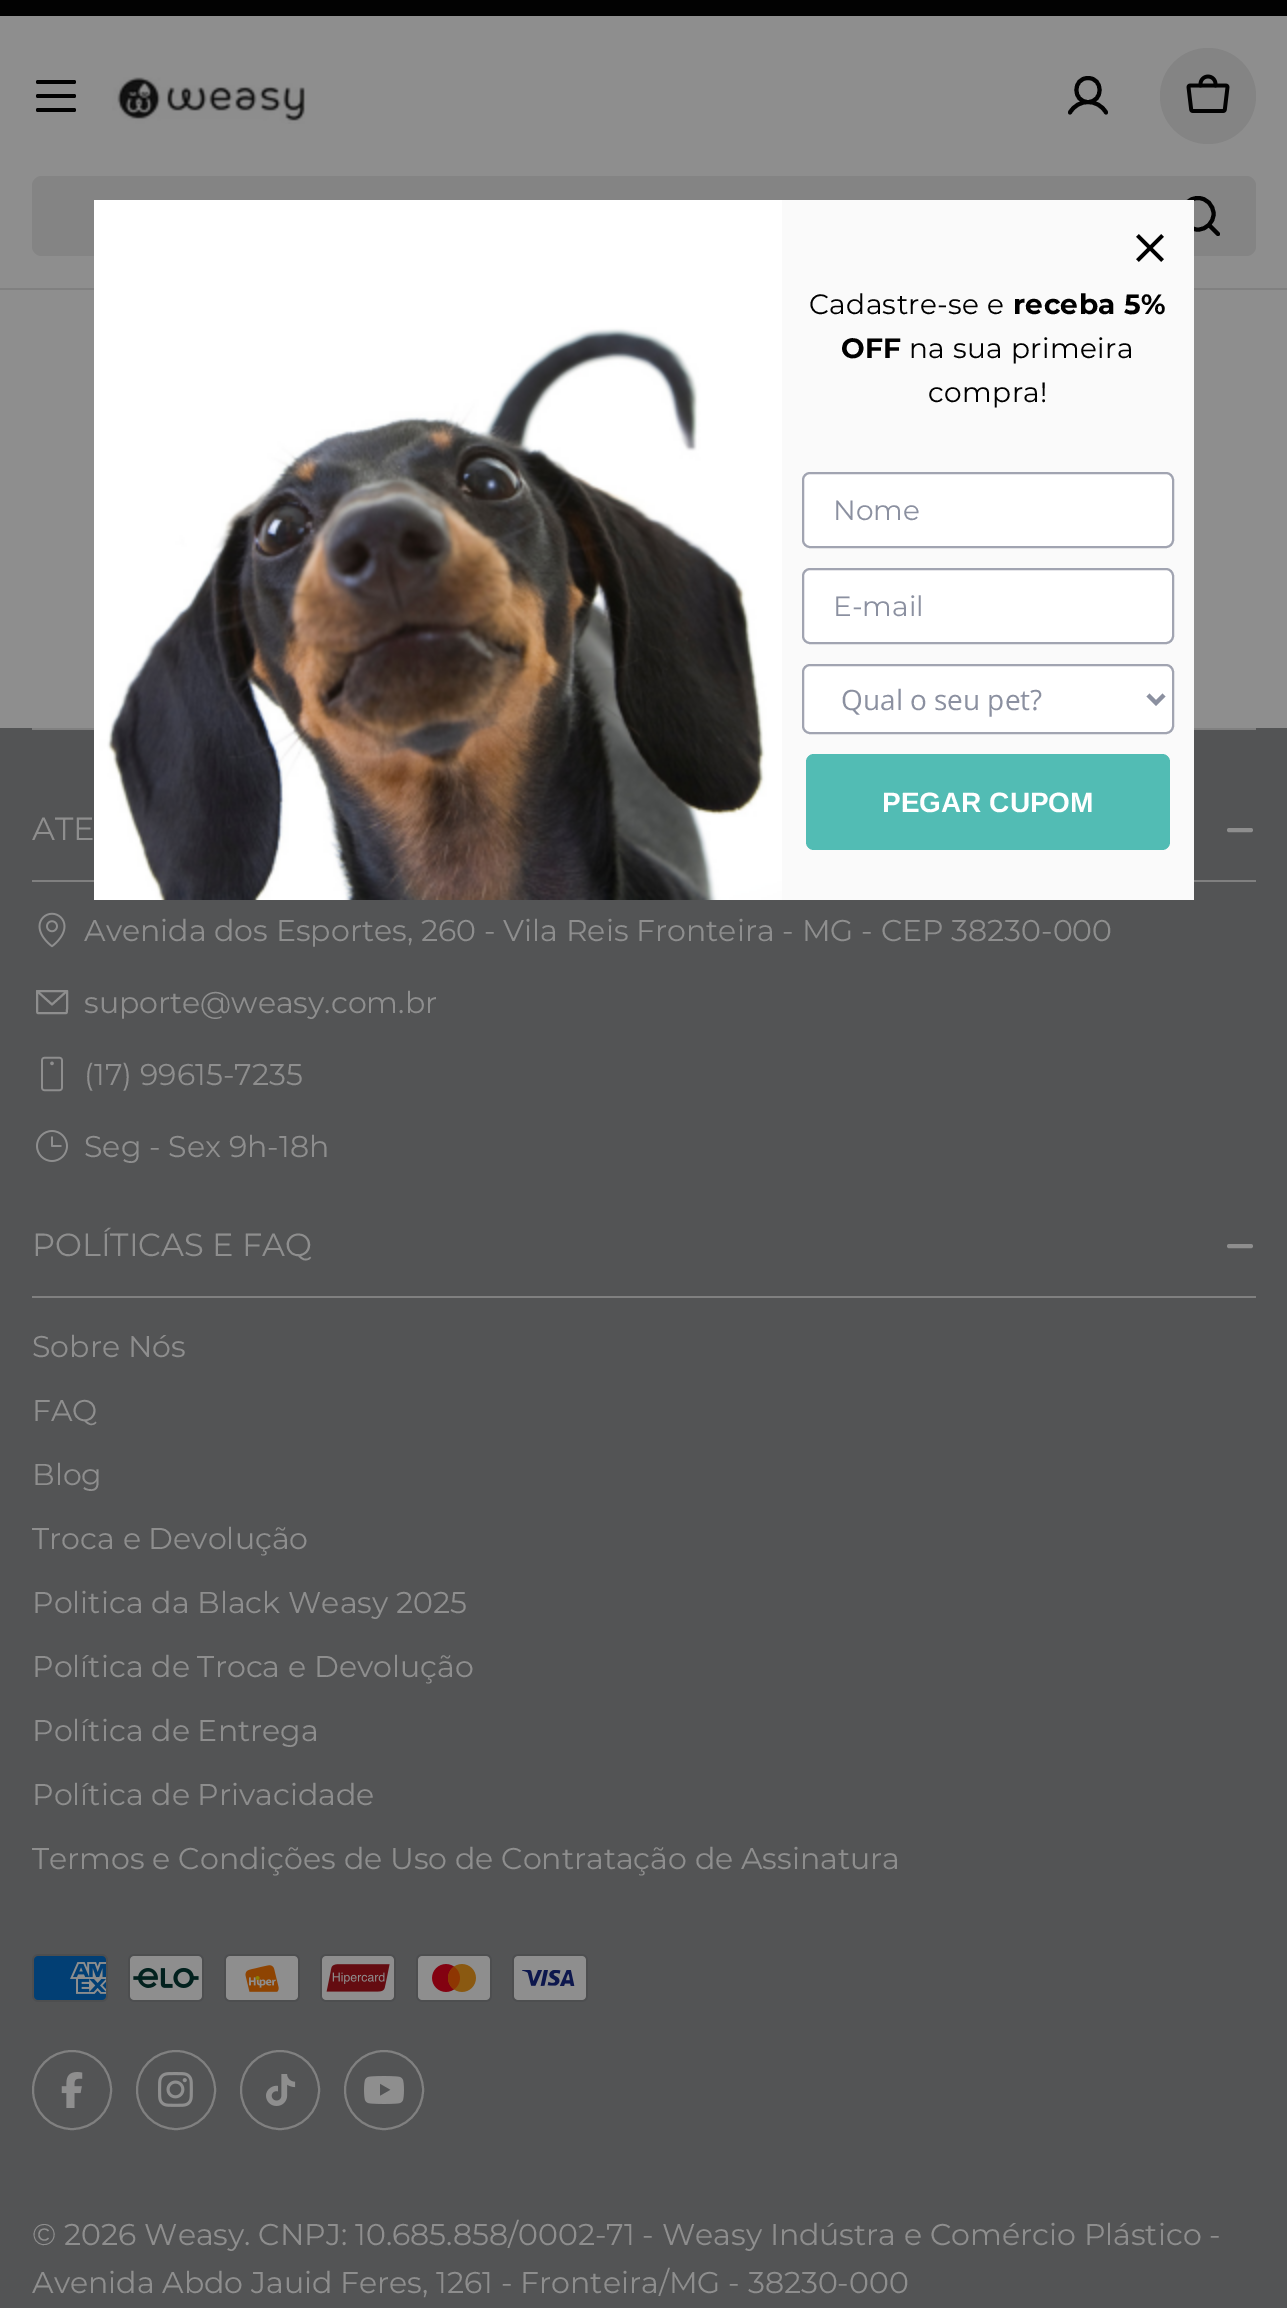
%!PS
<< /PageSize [1287 2308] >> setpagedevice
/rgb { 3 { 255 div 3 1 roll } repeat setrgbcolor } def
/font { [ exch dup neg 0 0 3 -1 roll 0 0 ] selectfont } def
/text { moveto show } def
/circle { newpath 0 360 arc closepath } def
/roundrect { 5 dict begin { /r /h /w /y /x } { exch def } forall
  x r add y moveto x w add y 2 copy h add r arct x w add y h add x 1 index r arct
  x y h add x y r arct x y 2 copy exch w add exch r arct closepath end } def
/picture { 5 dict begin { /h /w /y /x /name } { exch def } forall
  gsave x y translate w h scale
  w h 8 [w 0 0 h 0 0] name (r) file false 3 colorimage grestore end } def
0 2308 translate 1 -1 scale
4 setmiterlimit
142 142 142 rgb
0 0 1287 2308 rectfill
132 132 132 rgb
32 176 1224 80 10 roundrect fill
2 2 2 rgb
4 setlinewidth
1 setlinecap
1 setlinejoin
1198 229.5 moveto 8.5 0 15.5 -7 15.5 -15.5 rcurveto 0 -9 -7 -16 -15.5 -16 rcurveto -9 0 -16 7 -16 16 rcurveto 0 8.5 7 15.5 16 15.5 rcurveto closepath 1209 225 moveto 9 9 rlineto stroke
128 128 128 rgb
0 288 1287 2 rectfill
83 84 85 rgb
0 728 1287 1580 rectfill
128 128 128 rgb
32 728 1224 2 rectfill
32 880 1224 2 rectfill
250 250 250 rgb
782 200 412 700 rectfill
(img_01.rgb) 1136 234 28 28 picture
(img_02.rgb) 94 200 688 700 picture
255 255 255 rgb
803 473 370 74 7 roundrect gsave fill grestore
161 164 177 rgb
2 setlinewidth
0 setlinecap
0 setlinejoin
stroke
255 255 255 rgb
803 569 370 74 7 roundrect gsave fill grestore
161 164 177 rgb
stroke
255 255 255 rgb
803 665 370 68 7 roundrect gsave fill grestore
161 164 177 rgb
stroke
139 144 160 rgb
4 setlinewidth
1148 695 moveto 8 8 rlineto 8 -8 rlineto stroke
82 188 180 rgb
806 754 364 96 8 roundrect fill
2 2 2 rgb
0 0 1287 16 rectfill
36 94 40 4 2 roundrect fill
36 80 40 4 2 roundrect fill
36 108 40 4 2 roundrect fill
(img_03.rgb) 112 77 193 47 picture
1 setlinecap
1 setlinejoin
1088 102 moveto 15.5 0 15.5 -24 0 -24 rcurveto -15.5 0 -15.5 24 0 24 rcurveto closepath 1070 112.5 moveto 8 -14 28 -14 36 0 rcurveto stroke
132 132 132 rgb
1208 96 48 circle fill
(img_04.rgb) 1186 74 44 39 picture
142 142 142 rgb
1229 830 moveto 22 0 rlineto 1229 830 moveto 22 0 rlineto stroke
(img_05.rgb) 38 912 28 36 picture
2 setlinewidth
37 991 moveto 30 0 rlineto 0 17.5 rlineto 0 6 0.5 4.5 -6 4.5 rcurveto -18 0 rlineto -6.5 0 -6 1.5 -6 -4.5 rcurveto closepath 67 991 moveto -15 13.5 rlineto -15 -13.5 rlineto stroke
(img_06.rgb) 41 1056 22 36 picture
(img_07.rgb) 36 1130 32 32 picture
128 128 128 rgb
32 1296 1224 2 rectfill
142 142 142 rgb
4 setlinewidth
1229 1246 moveto 22 0 rlineto 1229 1246 moveto 22 0 rlineto stroke
(img_08.rgb) 32 1954 76 48 picture
(img_09.rgb) 128 1954 76 48 picture
(img_10.rgb) 224 1954 76 48 picture
(img_11.rgb) 320 1954 76 48 picture
(img_12.rgb) 416 1954 76 48 picture
(img_13.rgb) 512 1954 76 48 picture
128 128 128 rgb
2 setlinewidth
0 setlinecap
0 setlinejoin
72 2090 39 circle stroke
(img_14.rgb) 61 2072 22 36 picture
176 2090 39 circle stroke
(img_15.rgb) 158 2072 35 35 picture
280 2090 39 circle stroke
(img_16.rgb) 266 2074 30 32 picture
384 2090 39 circle stroke
(img_17.rgb) 364 2076 40 28 picture
/Montserrat-Regular 28 font
0 0 0 rgb
809 314 moveto 0.4 0 (Cadastre-se e) ashow
/Montserrat-Bold 28 font
1013 314 moveto 0.4 0 (receba 5%) ashow
841 358 moveto 0.4 0 (OFF) ashow
/Montserrat-Regular 28 font
909 358 moveto 0.4 0 (na sua primeira) ashow
928 402 moveto 0.4 0 (compra!) ashow
139 144 160 rgb
(Nome) 833 520 text
(E-mail) 833 616 text
/OpenSans-Regular 28 font
(Qual o seu pet?) 841 710 text
/LiberationSans-Bold 28 font
255 255 255 rgb
(PEGAR CUPOM) 882 812 text
/Montserrat-Regular 32 font
142 142 142 rgb
(ATE) 32 840 text
/Montserrat-Regular 30 font
(Avenida dos Esportes, 260 - Vila Reis Fronteira - MG - CEP 38230-000) 84 941 text
(suporte@weasy.com.br) 84 1013 text
(\(17\) 99615-7235) 84 1085 text
(Seg - Sex 9h-18h) 84 1157 text
/Montserrat-Regular 32 font
(POLÍTICAS E FAQ) 32 1256 text
/Montserrat-Regular 30 font
(Sobre Nós) 32 1357 text
(FAQ) 32 1421 text
(Blog) 32 1485 text
(Troca e Devolução) 32 1549 text
(Politica da Black Weasy 2025) 32 1613 text
(Política de Troca e Devolução) 32 1677 text
(Política de Entrega) 32 1741 text
(Política de Privacidade) 32 1805 text
(Termos e Condições de Uso de Contratação de Assinatura) 32 1869 text
(© 2026 Weasy. CNPJ: 10.685.858/0002-71 - Weasy Indústra e Comércio Plástico -) 32 2245 text
(Avenida Abdo Jauid Feres, 1261 - Fronteira/MG - 38230-000) 32 2293 text
showpage
